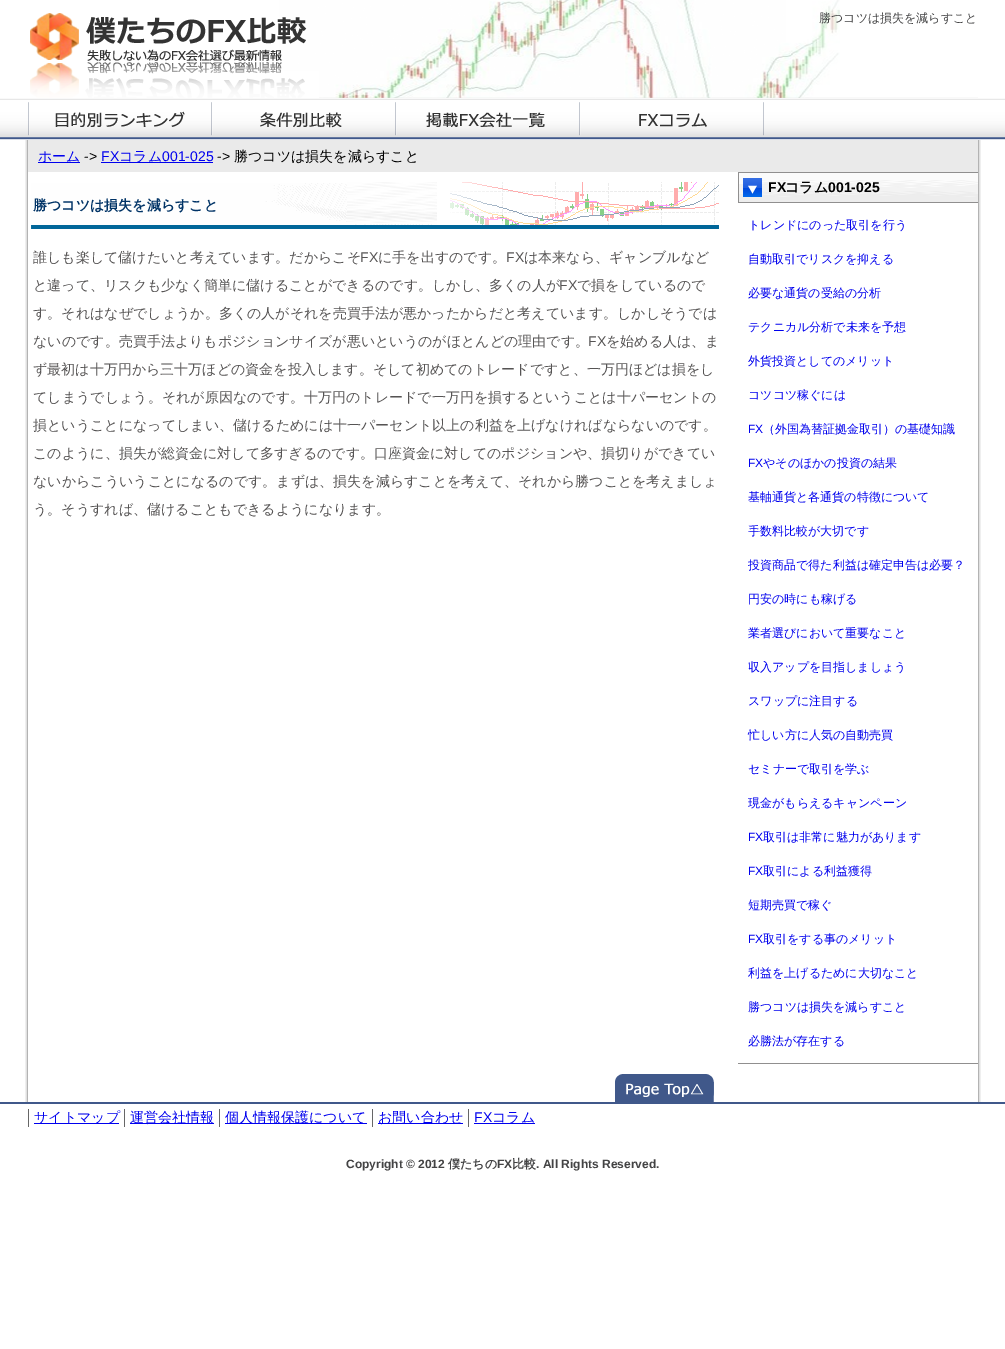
%!PS
<< /PageSize [1005 1349] >> setpagedevice
/rgb { 3 { 255 div 3 1 roll } repeat setrgbcolor } def
/font { [ exch dup neg 0 0 3 -1 roll 0 0 ] selectfont } def
/text { moveto show } def
/picture { 5 dict begin { /h /w /y /x /name } { exch def } forall
  gsave x y translate w h scale
  w h 8 [w 0 0 h 0 0] name (r) file false 3 colorimage grestore end } def
0 1349 translate 1 -1 scale
4 setmiterlimit
255 255 255 rgb
0 0 1005 1349 rectfill
(img_01.rgb) 0 98 1005 42 picture
(img_02.rgb) 28 0 950 98 picture
(img_03.rgb) 28 13 291 85 picture
(img_04.rgb) 28 102 184 34 picture
(img_05.rgb) 212 102 184 34 picture
(img_06.rgb) 396 102 184 34 picture
(img_07.rgb) 580 102 184 34 picture
(img_08.rgb) 25 140 956 962 picture
234 234 234 rgb
28 140 950 32 rectfill
0 0 238 rgb
38 162 42 1 rectfill
101 162 112 1 rectfill
(img_09.rgb) 31 182 688 47 picture
(img_10.rgb) 738 172 240 31 picture
144 143 143 rgb
738 1063 240 1 rectfill
(img_11.rgb) 615 1074 99 28 picture
64 88 138 rgb
0 1102 1005 2 rectfill
102 102 102 rgb
28 1109 1 18 rectfill
0 0 238 rgb
34 1123 85 1 rectfill
102 102 102 rgb
124 1109 1 18 rectfill
0 0 238 rgb
130 1123 84 1 rectfill
102 102 102 rgb
219 1109 1 18 rectfill
0 0 238 rgb
225 1123 142 1 rectfill
102 102 102 rgb
372 1109 1 18 rectfill
0 0 238 rgb
378 1123 85 1 rectfill
102 102 102 rgb
468 1109 1 18 rectfill
0 0 238 rgb
474 1123 61 1 rectfill
/WenQuanYiZenHei-Medium 12 font
67 67 68 rgb
(勝つコツは損失を減らすこと) 819 22 text
/WenQuanYiZenHei-Medium 14 font
0 0 238 rgb
(ホーム) 38 161 text
/LiberationSans-Regular 14 font
0 0 0 rgb
(->) 84 161 text
0 0 238 rgb
(FX) 101 161 text
/WenQuanYiZenHei-Medium 14 font
(コラム) 119 161 text
/LiberationSans-Regular 14 font
(001-025) 162 161 text
0 0 0 rgb
(->) 217 161 text
/WenQuanYiZenHei-Medium 14 font
(勝つコツは損失を減らすこと) 234 161 text
/WenQuanYiZenHei-Bold 14 font
0 51 102 rgb
(勝つコツは損失を減らすこと) 33 210 text
/WenQuanYiZenHei-Medium 14 font
86 84 84 rgb
(誰しも楽して儲けたいと考えています。だからこそ) 33 262 text
/LiberationSans-Regular 14 font
(FX) 360 262 text
/WenQuanYiZenHei-Medium 14 font
(に手を出すのです。) 378 262 text
/LiberationSans-Regular 14 font
(FX) 506 262 text
/WenQuanYiZenHei-Medium 14 font
(は本来なら、ギャンブルなど) 524 262 text
(と違って、リスクも少なく簡単に儲けることができるのです。しかし、多くの人が) 33 290 text
/LiberationSans-Regular 14 font
(FX) 559 290 text
/WenQuanYiZenHei-Medium 14 font
(で損をしているので) 577 290 text
(す。それはなぜでしょうか。多くの人がそれを売買手法が悪かったからだと考えています。しかしそうでは) 33 318 text
(ないのです。売買手法よりもポジションサイズが悪いというのがほとんどの理由です。) 33 346 text
/LiberationSans-Regular 14 font
(FX) 588 346 text
/WenQuanYiZenHei-Medium 14 font
(を始める人は、ま) 606 346 text
(ず最初は十万円から三十万ほどの資金を投入します。そして初めてのトレードですと、一万円ほどは損をし) 33 374 text
(てしまうでしょう。それが原因なのです。十万円のトレードで一万円を損するということは十パーセントの) 33 402 text
(損ということになってしまい、儲けるためには十一パーセント以上の利益を上げなければならないのです。) 33 430 text
(このように、損失が総資金に対して多すぎるのです。口座資金に対してのポジションや、損切りができてい) 33 458 text
(ないからこういうことになるのです。まずは、損失を減らすことを考えて、それから勝つことを考えましょ) 33 486 text
(う。そうすれば、儲けることもできるようになります。) 33 514 text
/LiberationSans-Bold 14 font
0 0 0 rgb
(FX) 768 192 text
/WenQuanYiZenHei-Bold 14 font
(コラム) 785 192 text
/LiberationSans-Bold 14 font
(001-025) 828 192 text
/WenQuanYiZenHei-Medium 12 font
0 0 238 rgb
(トレンドにのった取引を行う) 748 229 text
(自動取引でリスクを抑える) 748 263 text
(必要な通貨の受給の分析) 748 297 text
(テクニカル分析で未来を予想) 748 331 text
(外貨投資としてのメリット) 748 365 text
(コツコツ稼ぐには) 748 399 text
/LiberationSans-Regular 12 font
(FX) 748 433 text
/WenQuanYiZenHei-Medium 12 font
(（外国為替証拠金取引）の基礎知識) 763 433 text
/LiberationSans-Regular 12 font
(FX) 748 467 text
/WenQuanYiZenHei-Medium 12 font
(やそのほかの投資の結果) 763 467 text
(基軸通貨と各通貨の特徴について) 748 501 text
(手数料比較が大切です) 748 535 text
(投資商品で得た利益は確定申告は必要？) 748 569 text
(円安の時にも稼げる) 748 603 text
(業者選びにおいて重要なこと) 748 637 text
(収入アップを目指しましょう) 748 671 text
(スワップに注目する) 748 705 text
(忙しい方に人気の自動売買) 748 739 text
(セミナーで取引を学ぶ) 748 773 text
(現金がもらえるキャンペーン) 748 807 text
/LiberationSans-Regular 12 font
(FX) 748 841 text
/WenQuanYiZenHei-Medium 12 font
(取引は非常に魅力があります) 763 841 text
/LiberationSans-Regular 12 font
(FX) 748 875 text
/WenQuanYiZenHei-Medium 12 font
(取引による利益獲得) 763 875 text
(短期売買で稼ぐ) 748 909 text
/LiberationSans-Regular 12 font
(FX) 748 943 text
/WenQuanYiZenHei-Medium 12 font
(取引をする事のメリット) 763 943 text
(利益を上げるために大切なこと) 748 977 text
(勝つコツは損失を減らすこと) 748 1011 text
(必勝法が存在する) 748 1045 text
/WenQuanYiZenHei-Medium 14 font
(サイトマップ) 34 1122 text
(運営会社情報) 130 1122 text
(個人情報保護について) 225 1122 text
(お問い合わせ) 378 1122 text
/LiberationSans-Regular 14 font
(FX) 474 1122 text
/WenQuanYiZenHei-Medium 14 font
(コラム) 492 1122 text
/LiberationSans-Bold 12 font
67 67 68 rgb
(Copyright © 2012) 346 1168 text
/WenQuanYiZenHei-Bold 12 font
(僕たちの) 448 1168 text
/LiberationSans-Bold 12 font
(FX) 497 1168 text
/WenQuanYiZenHei-Bold 12 font
(比較) 512 1168 text
/LiberationSans-Bold 12 font
(. All Rights Reserved.) 536 1168 text
showpage
